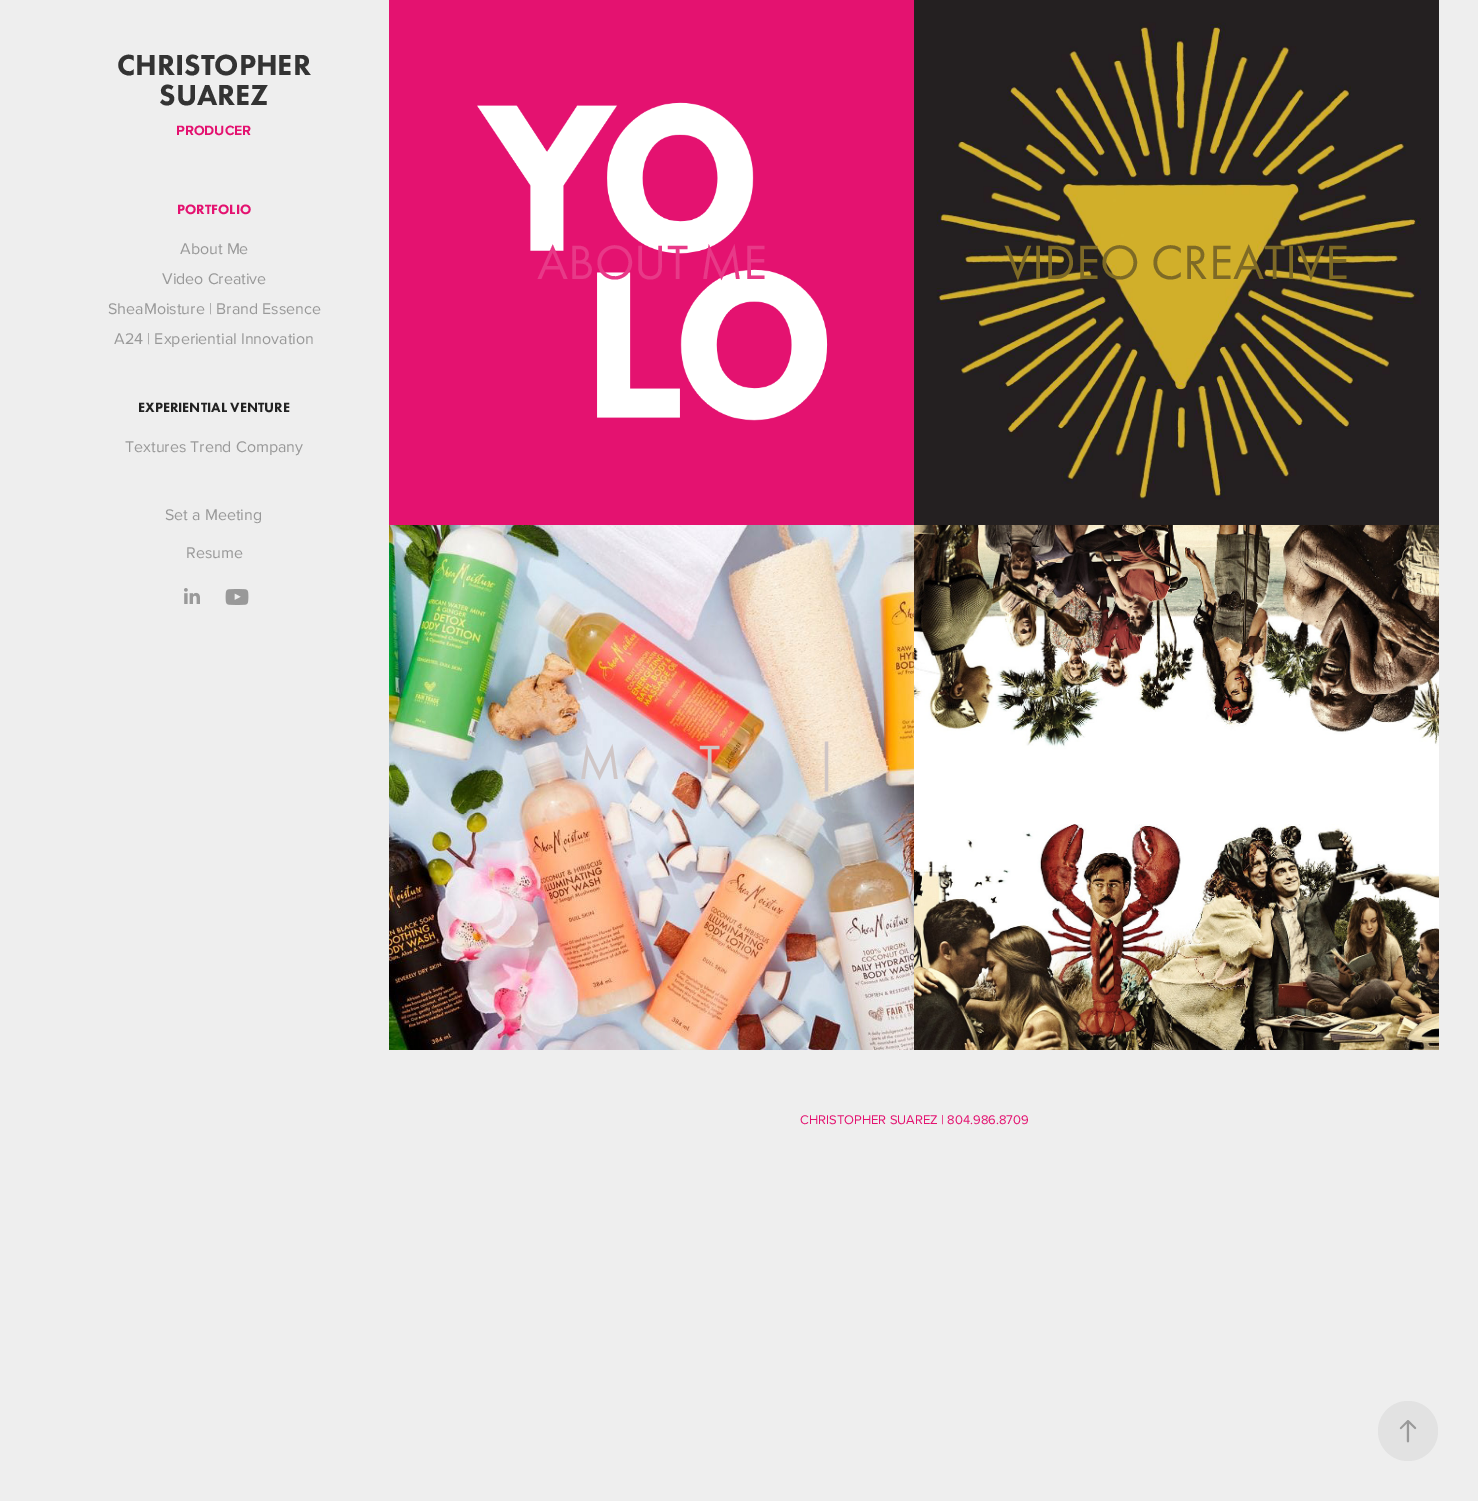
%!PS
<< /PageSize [1478 1501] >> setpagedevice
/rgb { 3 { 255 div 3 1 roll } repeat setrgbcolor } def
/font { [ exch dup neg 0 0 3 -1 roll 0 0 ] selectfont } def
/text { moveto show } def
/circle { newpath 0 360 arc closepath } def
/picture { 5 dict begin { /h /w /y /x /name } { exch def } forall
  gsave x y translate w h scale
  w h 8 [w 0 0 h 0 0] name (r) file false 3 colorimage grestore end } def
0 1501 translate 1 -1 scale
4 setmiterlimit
238 238 238 rgb
0 0 1478 1501 rectfill
(img_01.rgb) 184 588 16 16 picture
(img_02.rgb) 225 589 24 16 picture
(img_03.rgb) 389 0 525 525 picture
(img_04.rgb) 914 0 525 525 picture
(img_05.rgb) 389 525 525 525 picture
(img_06.rgb) 914 525 525 525 picture
226 226 226 rgb
1408 1431 30 circle fill
(img_07.rgb) 1399 1420 18 23 picture
/FuturaPT-Black 30 font
51 51 51 rgb
(CHRISTOPHER) 117 75 text
(SUAREZ) 159 105 text
/ProximaNova-Bold 14 font
228 18 112 rgb
(PRODUCER) 176 135 text
/FuturaPT-Black 14 font
(PORTFOLIO) 177 214 text
/ProximaNova-Regular 16 font
153 153 153 rgb
(About Me) 180 254 text
(Video Creative) 162 284 text
(SheaMoisture | Brand Essence) 108 314 text
(A24 | Experiential Innovation) 114 344 text
/FuturaPT-Black 14 font
34 34 34 rgb
(EXPERIENTIAL VENTURE) 138 412 text
/ProximaNova-Regular 16 font
153 153 153 rgb
(Textures Trend Company) 125 452 text
(Set a Meeting) 165 520 text
(Resume) 186 558 text
/FuturaPT-Regular 50 font
232 57 136 rgb
(ABOUT ME) 537 279 text
126 106 38 rgb
(VIDEO CREATIVE) 1004 279 text
207 198 198 rgb
(M) 578 779 text
(T) 699 779 text
(|) 814 779 text
/ProximaNova-Regular 13 font
228 18 112 rgb
(CHRISTOPHER SUAREZ | 804.986.8709) 800 1124 text
showpage
